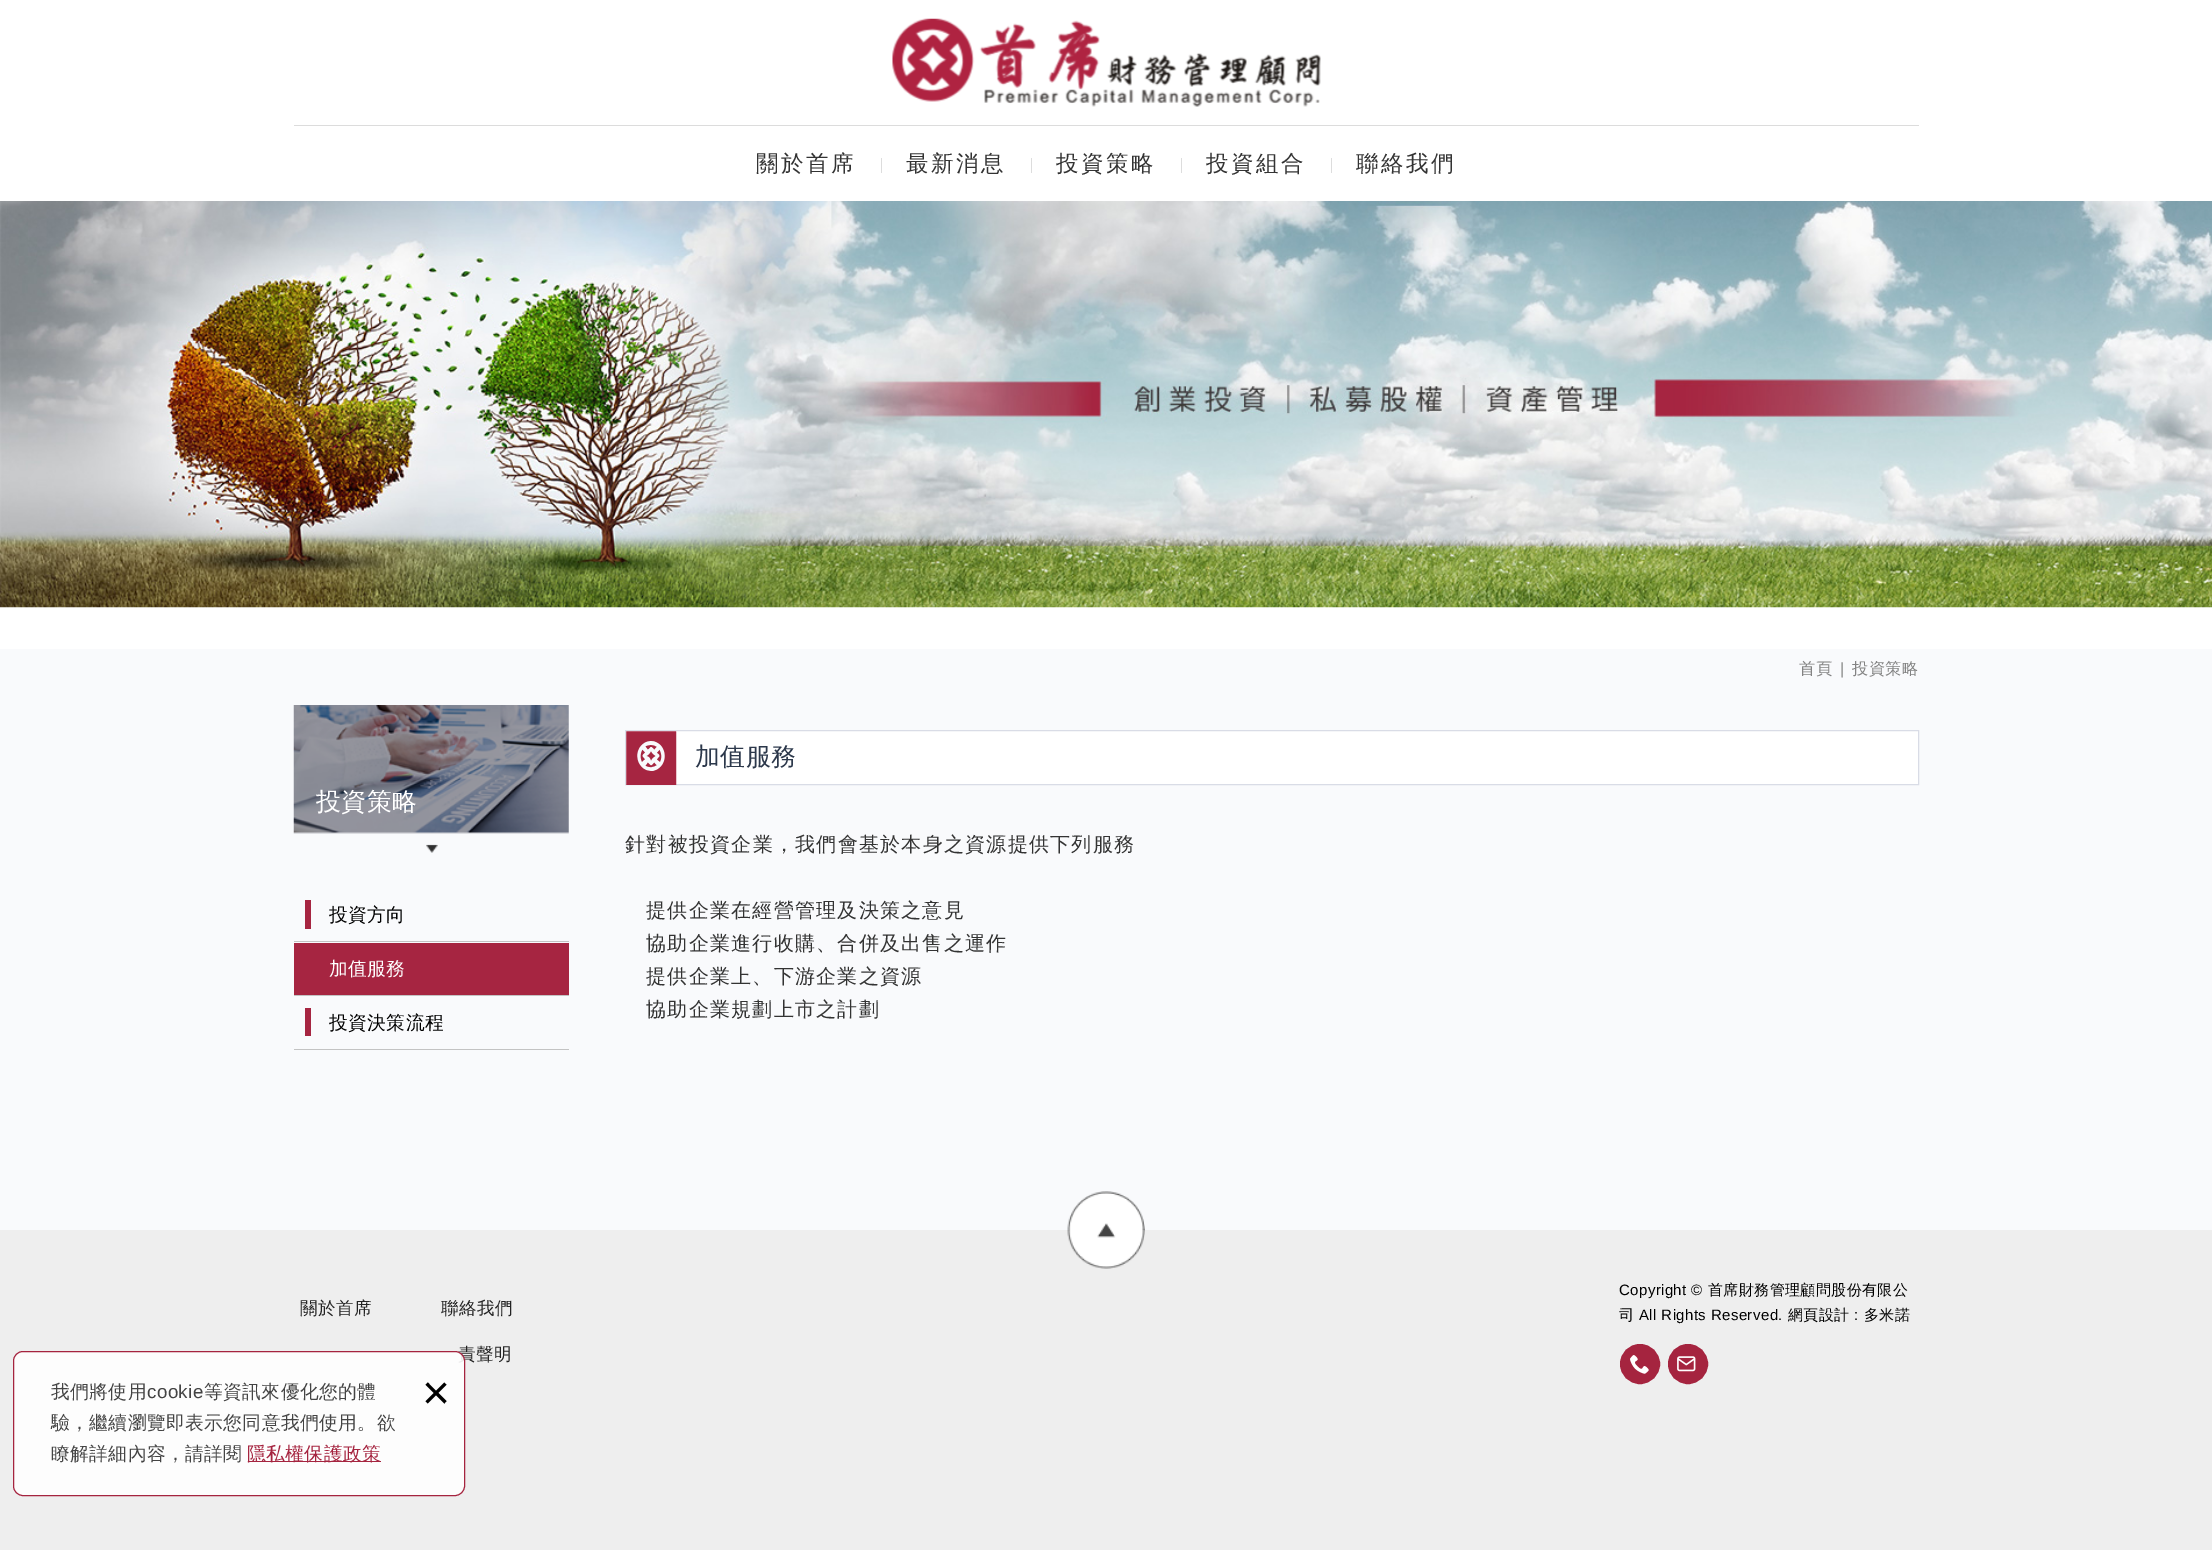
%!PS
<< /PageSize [2212 1550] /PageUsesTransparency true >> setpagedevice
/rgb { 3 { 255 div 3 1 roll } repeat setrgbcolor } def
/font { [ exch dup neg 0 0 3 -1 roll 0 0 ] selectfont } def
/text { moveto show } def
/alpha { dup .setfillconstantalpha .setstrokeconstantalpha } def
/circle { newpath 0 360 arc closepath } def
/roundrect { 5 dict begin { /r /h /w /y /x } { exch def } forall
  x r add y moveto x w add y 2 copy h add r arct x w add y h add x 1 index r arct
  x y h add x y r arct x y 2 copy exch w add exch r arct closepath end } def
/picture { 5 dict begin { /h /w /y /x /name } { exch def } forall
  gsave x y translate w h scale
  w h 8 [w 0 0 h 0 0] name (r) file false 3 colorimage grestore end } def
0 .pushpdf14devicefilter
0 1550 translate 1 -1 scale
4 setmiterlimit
255 255 255 rgb
0 0 2212 1550 rectfill
(img_01.rgb) 892 18 429 89 picture
220 220 220 rgb
294 125 1625 1 rectfill
221 221 221 rgb
881 158 1 15 rectfill
1031 158 1 15 rectfill
1181 158 1 15 rectfill
1331 158 1 15 rectfill
(img_02.rgb) 0 201 2212 407 picture
249 250 252 rgb
0 649 2212 581 rectfill
(img_03.rgb) 293 705 276 148 picture
195 195 195 rgb
294 941 275 1 rectfill
166 37 65 rgb
305 900 6 29 rectfill
195 195 195 rgb
294 995 275 1 rectfill
166 37 65 rgb
294 943 275 52 rectfill
195 195 195 rgb
294 1049 275 1 rectfill
166 37 65 rgb
305 1008 6 28 rectfill
255 255 255 rgb
625.5 730.5 moveto 1293 0 rlineto 0 54 rlineto -1293 0 rlineto closepath gsave fill grestore
217 220 230 rgb
stroke
(img_04.rgb) 626 731 51 54 picture
238 238 238 rgb
0 1230 2212 320 rectfill
(img_05.rgb) 1067 1191 78 78 picture
165 36 63 rgb
1640 1364 18.5 circle gsave fill grestore
3 setlinewidth
stroke
(img_06.rgb) 1630 1355 19 19 picture
1688 1364 18.5 circle gsave fill grestore
stroke
(img_07.rgb) 1677 1356 19 16 picture
/WenQuanYiZenHei-Medium 22.5 font
51 51 51 rgb
756 171 moveto 2.5 0 (關於首席) ashow
906 171 moveto 2.5 0 (最新消息) ashow
1056 171 moveto 2.5 0 (投資策略) ashow
1206 171 moveto 2.5 0 (投資組合) ashow
1356 171 moveto 2.5 0 (聯絡我們) ashow
/WenQuanYiZenHei-Medium 16.25 font
131 131 131 rgb
1799 674 moveto 0.4 0 (首頁) ashow
/LiberationSans-Regular 16.25 font
1840 674 moveto 0.4 0 (|) ashow
/WenQuanYiZenHei-Medium 16.25 font
1852 674 moveto 0.4 0 (投資策略) ashow
/WenQuanYiZenHei-Medium 25 font
255 255 255 rgb
316 810 moveto 0.4 0 (投資策略) ashow
/WenQuanYiZenHei-Medium 18.75 font
0 0 0 rgb
329 921 moveto 0.4 0 (投資方向) ashow
255 255 255 rgb
329 975 moveto 0.4 0 (加值服務) ashow
0 0 0 rgb
329 1029 moveto 0.4 0 (投資決策流程) ashow
/WenQuanYiZenHei-Medium 25 font
44 56 75 rgb
695 765 moveto 0.4 0 (加值服務) ashow
/WenQuanYiZenHei-Medium 20 font
51 51 51 rgb
625 851 moveto 1.25 0 (針對被投資企業，我們會基於本身之資源提供下列服務) ashow
646 917 moveto 1.25 0 (提供企業在經營管理及決策之意見) ashow
646 950 moveto 1.25 0 (協助企業進行收購、合併及出售之運作) ashow
646 983 moveto 1.25 0 (提供企業上、下游企業之資源) ashow
646 1016 moveto 1.25 0 (協助企業規劃上市之計劃) ashow
/WenQuanYiZenHei-Medium 17.5 font
35 35 35 rgb
300 1314 moveto 0.4 0 (關於首席) ashow
441 1314 moveto 0.4 0 (聯絡我們) ashow
458 1360 moveto 0.4 0 (責聲明) ashow
0.9 alpha
255 255 255 rgb
13.5 1351.5 451 144 9.5 roundrect fill
1 alpha
165 36 63 rgb
1 setlinewidth
13.5 1351.5 451 144 9.5 roundrect stroke
/LiberationSans-Regular 48 font
0 0 0 rgb
(×) 422 1409 text
165 36 63 rgb
248 1461 133 1 rectfill
/WenQuanYiZenHei-Medium 18.75 font
247 1460 moveto 0.4 0 (隱私權保護政策) ashow
68 68 68 rgb
51 1460 moveto 0.4 0 (瞭解詳細內容，請詳閱) ashow
51 1429 moveto 0.4 0 (驗，繼續瀏覽即表示您同意我們使用。欲) ashow
204 1398 moveto 0.4 0 (等資訊來優化您的體) ashow
/LiberationSans-Regular 18.75 font
147 1398 moveto 0.4 0 (cookie) ashow
/WenQuanYiZenHei-Medium 18.75 font
51 1398 moveto 0.4 0 (我們將使用) ashow
/LiberationSans-Regular 15 font
0 0 0 rgb
1619 1295 moveto 0.4 0 (Copyright ©) ashow
/WenQuanYiZenHei-Medium 15 font
1708 1295 moveto 0.4 0 (首席財務管理顧問股份有限公) ashow
1619 1320 moveto 0.4 0 (司) ashow
/LiberationSans-Regular 15 font
1639 1320 moveto 0.4 0 (All Rights Reserved.) ashow
/WenQuanYiZenHei-Medium 15 font
1788 1320 moveto 0.4 0 (網頁設計) ashow
/LiberationSans-Regular 15 font
1854 1320 moveto 0.4 0 (:) ashow
/WenQuanYiZenHei-Medium 15 font
1864 1320 moveto 0.4 0 (多米諾) ashow
.poppdf14devicefilter showpage
